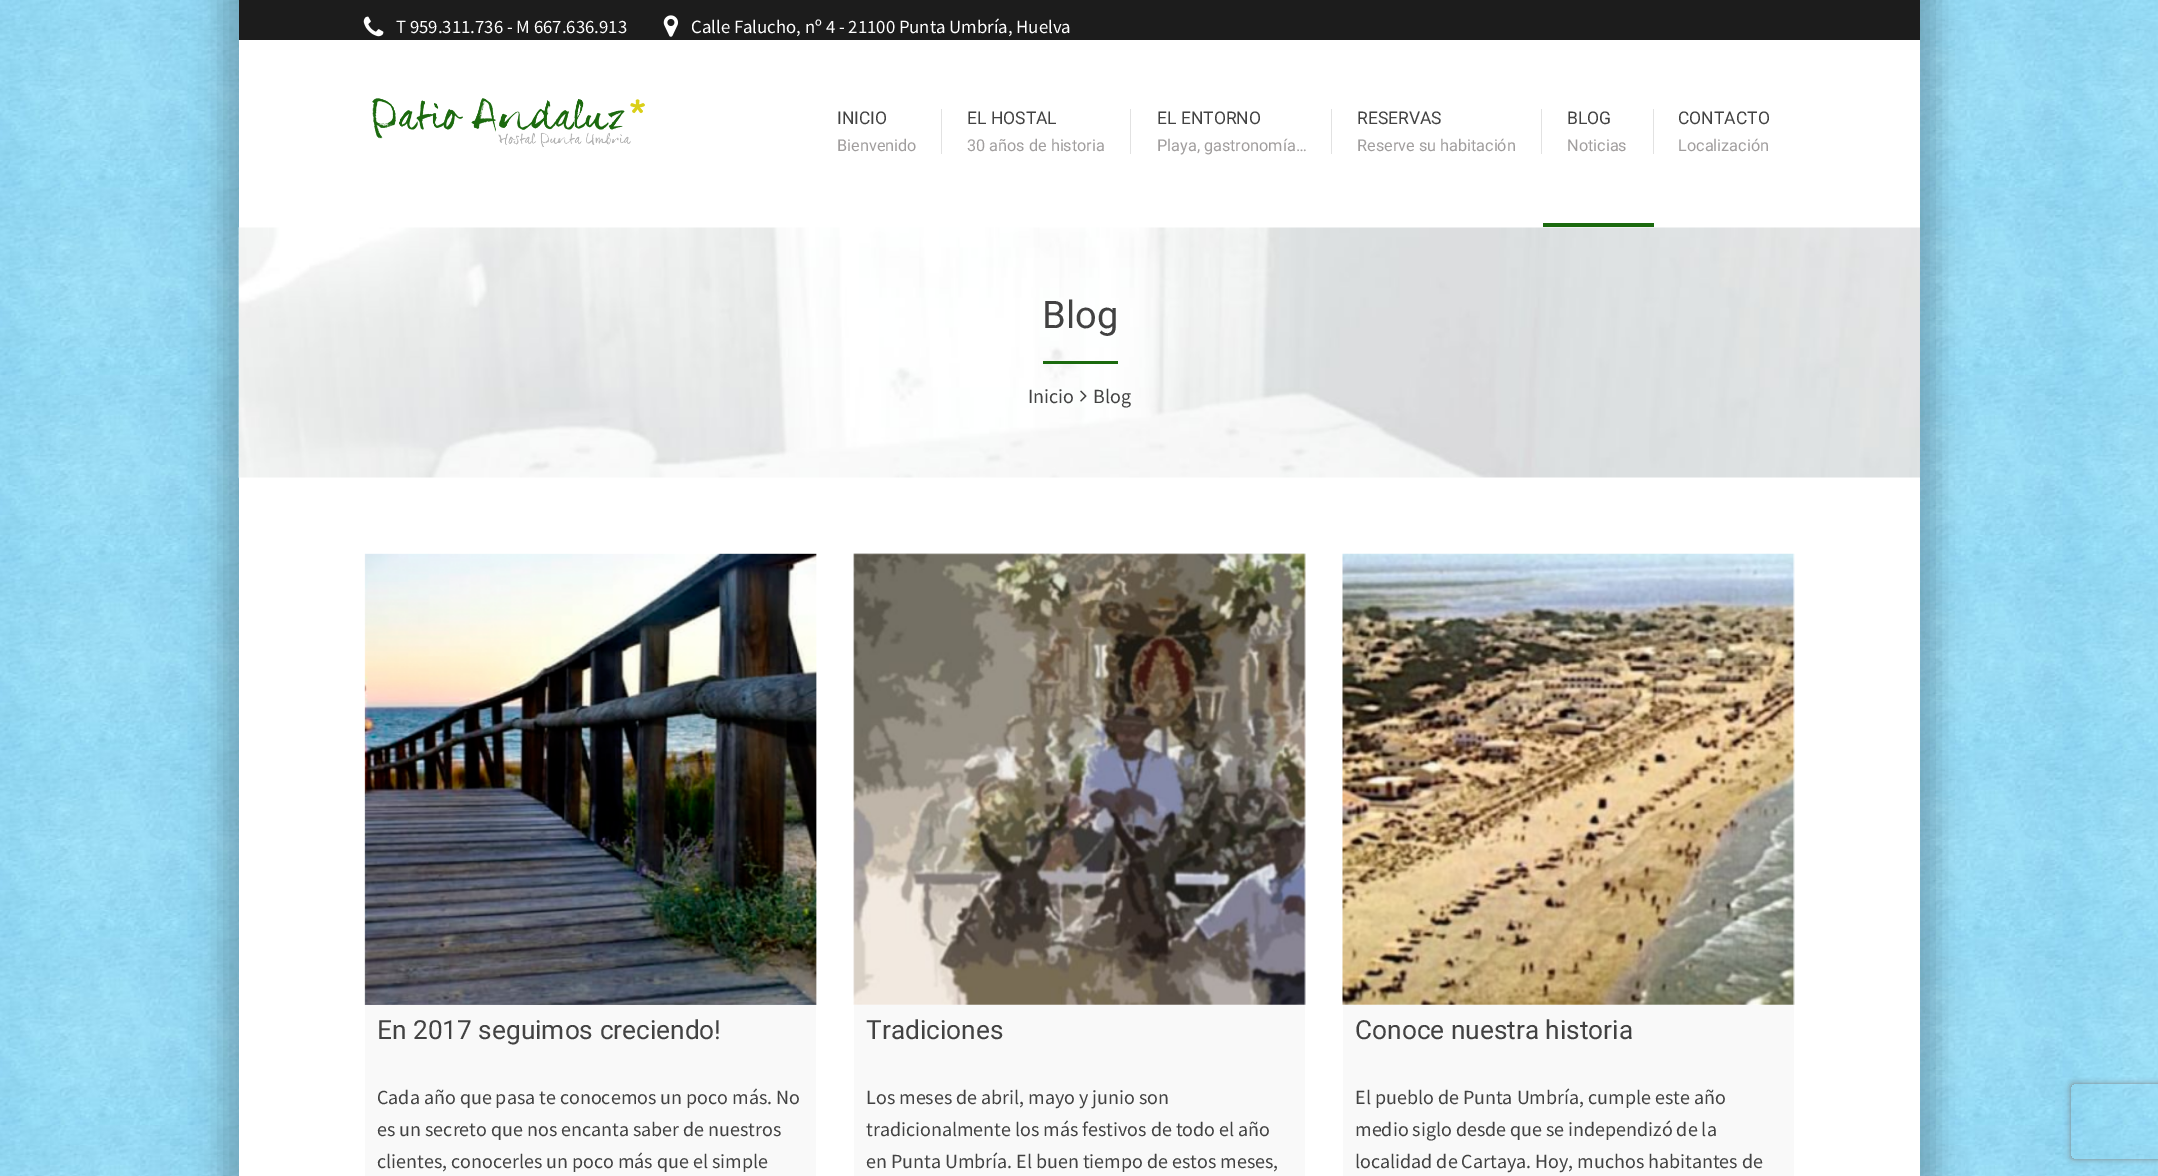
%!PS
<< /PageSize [2158 1176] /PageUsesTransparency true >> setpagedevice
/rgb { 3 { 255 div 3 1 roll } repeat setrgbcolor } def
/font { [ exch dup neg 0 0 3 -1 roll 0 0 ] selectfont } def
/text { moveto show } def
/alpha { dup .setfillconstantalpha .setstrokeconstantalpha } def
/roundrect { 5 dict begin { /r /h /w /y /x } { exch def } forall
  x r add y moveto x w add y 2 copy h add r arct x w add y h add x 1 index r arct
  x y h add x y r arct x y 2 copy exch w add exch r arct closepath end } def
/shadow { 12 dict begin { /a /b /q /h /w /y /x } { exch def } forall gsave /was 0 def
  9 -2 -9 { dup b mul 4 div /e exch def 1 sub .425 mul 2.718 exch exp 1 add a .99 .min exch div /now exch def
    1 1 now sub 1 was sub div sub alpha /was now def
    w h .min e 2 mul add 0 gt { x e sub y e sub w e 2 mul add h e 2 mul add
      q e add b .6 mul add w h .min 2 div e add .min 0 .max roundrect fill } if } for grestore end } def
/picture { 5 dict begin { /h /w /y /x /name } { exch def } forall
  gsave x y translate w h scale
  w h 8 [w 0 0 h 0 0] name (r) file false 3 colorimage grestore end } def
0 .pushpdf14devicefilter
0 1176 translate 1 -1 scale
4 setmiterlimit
255 255 255 rgb
0 0 2158 1176 rectfill
(img_01.rgb) 0 0 2158 1176 picture
0 0 0 rgb
220 -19 1719 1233 0 12.5 0.2 shadow
255 255 255 rgb
239 40 1681 1136 rectfill
28 28 28 rgb
239 0 1681 40 rectfill
(img_02.rgb) 363 16 21 21 picture
(img_03.rgb) 663 15 15 22 picture
(img_04.rgb) 372 98 273 49 picture
226 226 226 rgb
941 109 1 45 rectfill
1130 109 1 45 rectfill
1331 109 1 45 rectfill
1541 109 1 45 rectfill
27 106 14 rgb
1543 223 111 4 rectfill
226 226 226 rgb
1653 109 1 45 rectfill
(img_05.rgb) 238 227 1682 251 picture
27 106 14 rgb
1043 361 75 3 rectfill
(img_06.rgb) 1080 390 7 12 picture
(img_07.rgb) 364 553 453 452 picture
249 249 249 rgb
365 1005 451 171 rectfill
(img_08.rgb) 853 553 453 452 picture
854 1005 451 171 rectfill
(img_09.rgb) 1342 553 453 452 picture
1343 1005 451 171 rectfill
gsave
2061 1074 moveto 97 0 rlineto 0 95 rlineto -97 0 rlineto closepath 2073.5 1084 moveto 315 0 rlineto 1.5 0 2.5 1 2.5 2.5 rcurveto 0 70 rlineto 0 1.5 -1 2.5 -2.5 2.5 rcurveto -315 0 rlineto -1.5 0 -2.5 -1 -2.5 -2.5 rcurveto 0 -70 rlineto 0 -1.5 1 -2.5 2.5 -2.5 rcurveto closepath eoclip newpath
128 128 128 rgb
2071 1084 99 75 2.5 3 1 shadow
grestore
/SourceSansPro-Regular 18.75 font
255 255 255 rgb
(T 959.311.736 - M 667.636.913) 396 33 text
(Calle Falucho, nº 4 - 21100 Punta Umbría, Huelva) 691 33 text
/Roboto-Regular 17.5 font
66 66 66 rgb
(INICIO) 837 124 text
/Roboto-Regular 16.25 font
160 157 157 rgb
(Bienvenido) 837 151 text
/Roboto-Regular 17.5 font
66 66 66 rgb
(EL HOSTAL) 967 124 text
/Roboto-Regular 16.25 font
160 157 157 rgb
(30 años de historia) 967 151 text
/Roboto-Regular 17.5 font
66 66 66 rgb
(EL ENTORNO) 1157 124 text
/Roboto-Regular 16.25 font
160 157 157 rgb
(Playa, gastronomía…) 1157 151 text
/Roboto-Regular 17.5 font
66 66 66 rgb
(RESERVAS) 1357 124 text
/Roboto-Regular 16.25 font
160 157 157 rgb
(Reserve su habitación) 1357 151 text
/Roboto-Regular 17.5 font
66 66 66 rgb
(BLOG) 1567 124 text
/Roboto-Regular 16.25 font
160 157 157 rgb
(Noticias) 1567 151 text
/Roboto-Regular 17.5 font
66 66 66 rgb
(CONTACTO) 1678 124 text
/Roboto-Regular 16.25 font
160 157 157 rgb
(Localización) 1678 151 text
/Roboto-Regular 38 font
66 66 66 rgb
(Blog) 1042 328 text
/SourceSansPro-Regular 20 font
(Inicio) 1028 403 text
(Blog) 1093 403 text
/Roboto-Regular 26.25 font
(En 2017 seguimos creciendo!) 377 1039 text
/SourceSansPro-Regular 20 font
(Cada año que pasa te conocemos un poco más. No) 377 1104 text
(es un secreto que nos encanta saber de nuestros) 377 1136 text
(clientes, conocerles un poco más que el simple) 377 1168 text
/Roboto-Regular 26.25 font
(Tradiciones) 866 1039 text
/SourceSansPro-Regular 20 font
(Los meses de abril, mayo y junio son) 866 1104 text
(tradicionalmente los más festivos de todo el año) 866 1136 text
(en Punta Umbría. El buen tiempo de estos meses,) 866 1168 text
/Roboto-Regular 26.25 font
(Conoce nuestra historia) 1355 1039 text
/SourceSansPro-Regular 20 font
(El pueblo de Punta Umbría, cumple este año) 1355 1104 text
(medio siglo desde que se independizó de la) 1355 1136 text
(localidad de Cartaya. Hoy, muchos habitantes de) 1355 1168 text
.poppdf14devicefilter showpage
